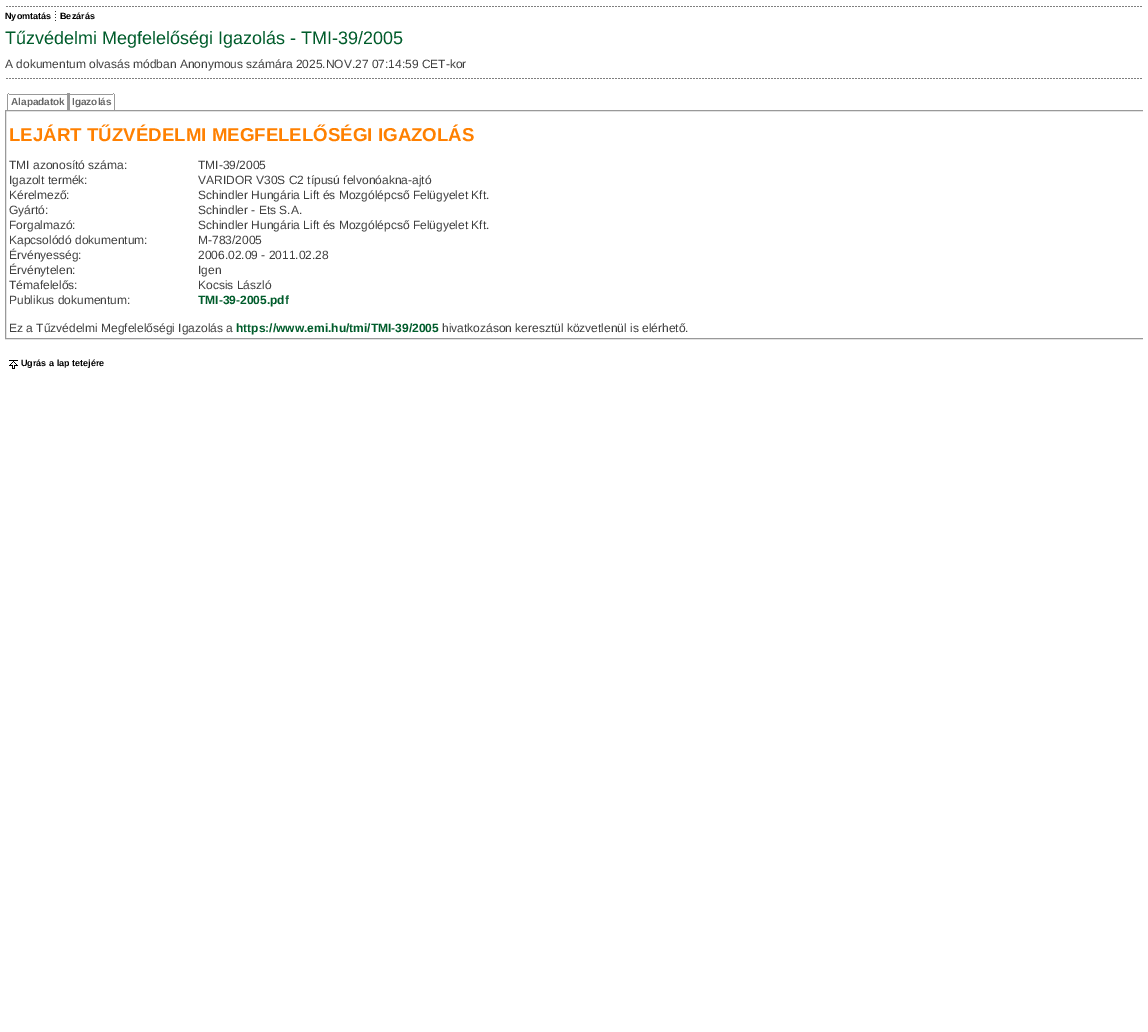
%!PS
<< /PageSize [1148 1032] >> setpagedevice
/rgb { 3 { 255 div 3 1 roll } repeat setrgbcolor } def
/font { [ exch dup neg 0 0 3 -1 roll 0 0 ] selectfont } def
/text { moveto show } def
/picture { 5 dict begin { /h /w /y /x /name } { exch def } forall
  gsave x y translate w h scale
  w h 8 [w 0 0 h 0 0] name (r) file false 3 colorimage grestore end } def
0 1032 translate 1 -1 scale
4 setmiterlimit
255 255 255 rgb
0 0 1148 1032 rectfill
(img_01.rgb) 6 6 1136 1 picture
(img_02.rgb) 55 11 1 10 picture
(img_01.rgb) 6 78 1136 1 picture
(img_03.rgb) 7 93 2 17 picture
153 153 153 rgb
9 94 58 1 rectfill
67 93 3 17 rectfill
70 94 43 1 rectfill
(img_04.rgb) 113 93 2 17 picture
gsave
5 92 1138 935 rectclip
5.5 110.5 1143 228 rectstroke
grestore
(img_05.rgb) 9 360 9 9 picture
/LiberationSans-Bold 9 font
0 0 0 rgb
(Nyomtatás) 5 19 text
(Bezárás) 60 19 text
/LiberationSans-Regular 18 font
0 92 43 rgb
(Tűzvédelmi Megfelelőségi Igazolás - TMI-39/2005) 5 44 text
/LiberationSans-Regular 12 font
63 63 63 rgb
(A dokumentum olvasás módban Anonymous számára 2025.NOV.27 07:14:59 CET-kor) 5 68 text
/LiberationSans-Bold 10 font
102 102 102 rgb
(Alapadatok) 11 105 text
(Igazolás) 72 105 text
/LiberationSans-Bold 18.7 font
255 128 0 rgb
(LEJÁRT TŰZVÉDELMI MEGFELELŐSÉGI IGAZOLÁS) 9 141 text
/LiberationSans-Regular 12 font
63 63 63 rgb
(TMI azonosító száma:) 9 169 text
(TMI-39/2005) 198 169 text
(Igazolt termék:) 9 184 text
(VARIDOR V30S C2 típusú felvonóakna-ajtó) 198 184 text
(Kérelmező:) 9 199 text
(Schindler Hungária Lift és Mozgólépcső Felügyelet Kft.) 198 199 text
(Gyártó:) 9 214 text
(Schindler - Ets S.A.) 198 214 text
(Forgalmazó:) 9 229 text
(Schindler Hungária Lift és Mozgólépcső Felügyelet Kft.) 198 229 text
(Kapcsolódó dokumentum:) 9 244 text
(M-783/2005) 198 244 text
(Érvényesség:) 9 259 text
(2006.02.09 - 2011.02.28) 198 259 text
(Érvénytelen:) 9 274 text
(Igen) 198 274 text
(Témafelelős:) 9 289 text
(Kocsis László) 198 289 text
(Publikus dokumentum:) 9 304 text
/LiberationSans-Bold 12 font
0 92 43 rgb
(TMI-39-2005.pdf) 198 304 text
/LiberationSans-Regular 12 font
63 63 63 rgb
(Ez a Tűzvédelmi Megfelelőségi Igazolás a) 9 332 text
/LiberationSans-Bold 12 font
0 92 43 rgb
(https://www.emi.hu/tmi/TMI-39/2005) 236 332 text
/LiberationSans-Regular 12 font
63 63 63 rgb
(hivatkozáson keresztül közvetlenül is elérhető.) 442 332 text
/LiberationSans-Bold 9 font
0 0 0 rgb
(Ugrás a lap tetejére) 21 366 text
showpage
